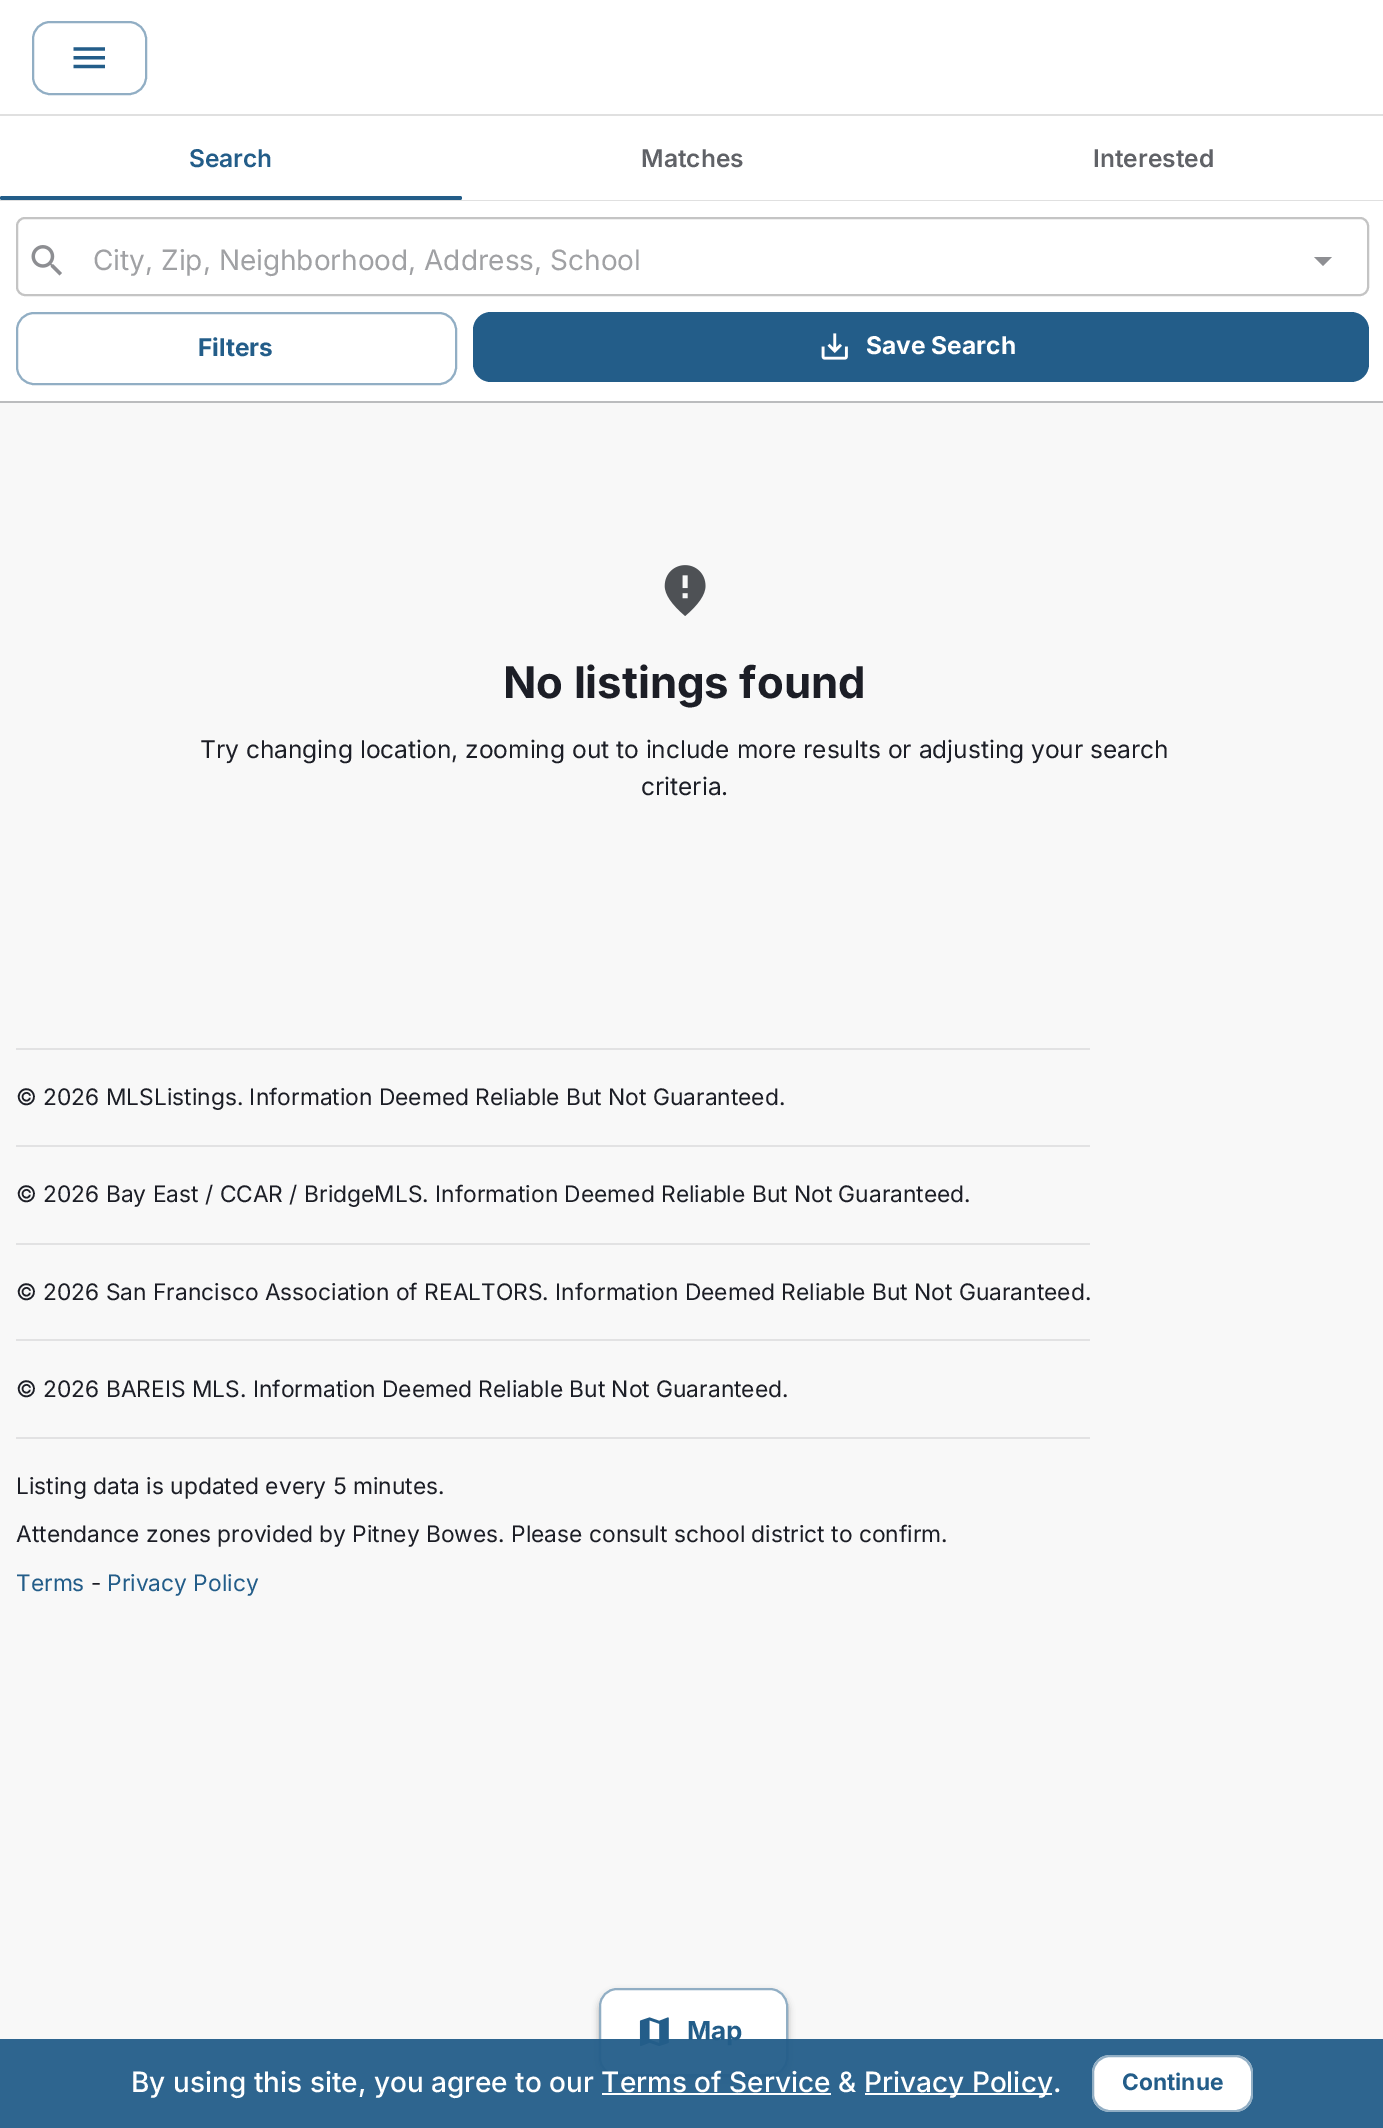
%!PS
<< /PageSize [1383 2128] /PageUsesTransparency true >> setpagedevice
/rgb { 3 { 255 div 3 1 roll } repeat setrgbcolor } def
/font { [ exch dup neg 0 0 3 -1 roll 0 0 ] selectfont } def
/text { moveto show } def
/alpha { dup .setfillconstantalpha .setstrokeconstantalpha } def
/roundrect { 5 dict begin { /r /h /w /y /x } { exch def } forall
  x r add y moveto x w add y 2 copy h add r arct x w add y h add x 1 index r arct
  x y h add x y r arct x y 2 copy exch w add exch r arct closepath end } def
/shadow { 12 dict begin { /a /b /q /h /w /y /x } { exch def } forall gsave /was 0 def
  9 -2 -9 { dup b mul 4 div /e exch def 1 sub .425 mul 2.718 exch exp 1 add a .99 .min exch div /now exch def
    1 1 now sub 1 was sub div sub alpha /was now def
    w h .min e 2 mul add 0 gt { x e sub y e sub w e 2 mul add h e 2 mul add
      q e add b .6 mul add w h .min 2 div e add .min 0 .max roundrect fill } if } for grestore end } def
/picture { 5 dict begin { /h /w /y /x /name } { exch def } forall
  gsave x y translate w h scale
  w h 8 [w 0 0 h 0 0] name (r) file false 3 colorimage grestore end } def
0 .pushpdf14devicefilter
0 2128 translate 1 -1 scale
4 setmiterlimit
248 248 248 rgb
0 0 1383 2128 rectfill
255 255 255 rgb
0 0 1383 114 rectfill
145 174 196 rgb
2 setlinewidth
33 22 113 72 17 roundrect stroke
(img_01.rgb) 73 47 32 22 picture
255 255 255 rgb
0 116 1383 84 rectfill
224 224 224 rgb
0 114 1383 2 rectfill
0 200 1383 1 rectfill
35 93 137 rgb
0 196 462 4 2 roundrect fill
255 255 255 rgb
0 201 1383 200 rectfill
187 188 190 rgb
0 401 1383 2 rectfill
(img_02.rgb) 31 245 31 31 picture
142 143 147 rgb
1314 257 moveto 9 9 rlineto 9 -9 rlineto closepath fill
196 196 196 rgb
17 218 1351 77 8 roundrect stroke
145 174 196 rgb
17 313 439 71 17 roundrect stroke
35 93 137 rgb
473 312 896 70 18 roundrect fill
(img_03.rgb) 821 333 27 27 picture
(img_04.rgb) 664 565 42 51 picture
226 226 227 rgb
16 1048 1074 2 rectfill
16 1145 1074 2 rectfill
16 1243 1074 2 rectfill
16 1339 1074 2 rectfill
16 1437 1074 2 rectfill
0 0 0 rgb
599 1992 189 87 18 3.5 0.3 shadow
255 255 255 rgb
599 1988 189 88 18 roundrect fill
0.5 alpha
35 93 137 rgb
600 1989 187 86 17 roundrect stroke
1 alpha
(img_05.rgb) 639 2017 30 30 picture
/Inter-SemiBold 24.5 font
(Search) 189 167 text
96 98 103 rgb
(Matches) 641 167 text
(Interested) 1093 167 text
/Inter-Regular 28 font
160 161 164 rgb
(City, Zip, Neighborhood, Address, School) 93 270 text
/Inter-Bold 24.5 font
35 93 137 rgb
(Filters) 198 356 text
255 255 255 rgb
(Save Search) 866 354 text
/Inter-Bold 43.75 font
28 30 38 rgb
(No listings found) 503 698 text
/Inter-Regular 24.5 font
(Try changing location, zooming out to include more results or adjusting your search) 200 758 text
(criteria.) 641 795 text
/Inter-Regular 22.75 font
(© 2026 MLSListings. Information Deemed Reliable But Not Guaranteed.) 16 1105 text
(© 2026 Bay East / CCAR / BridgeMLS. Information Deemed Reliable But Not Guaranteed.) 16 1202 text
(© 2026 San Francisco Association of REALTORS. Information Deemed Reliable But Not Guaranteed.) 16 1300 text
(© 2026 BAREIS MLS. Information Deemed Reliable But Not Guaranteed.) 16 1397 text
(Listing data is updated every 5 minutes.) 16 1494 text
(Attendance zones provided by Pitney Bowes. Please consult school district to confirm.) 16 1542 text
35 93 137 rgb
(Terms) 16 1591 text
28 30 38 rgb
(-) 91 1591 text
35 93 137 rgb
(Privacy Policy) 107 1591 text
/Inter-Bold 26 font
(Map) 687 2040 text
0.95 alpha
0 2039 1383 89 rectfill
/Inter-Medium 28 font
1 alpha
255 255 255 rgb
(By using this site, you agree to our Terms of Service &) 131 2092 text
865 2093 187 2 rectfill
(Privacy Policy.) 864 2092 text
602 2093 229 2 rectfill
1092 2055 161 57 18 roundrect fill
0.5 alpha
35 93 137 rgb
1093 2056 159 55 17 roundrect stroke
/Inter-Bold 22.75 font
1 alpha
(Continue) 1122 2090 text
.poppdf14devicefilter showpage
